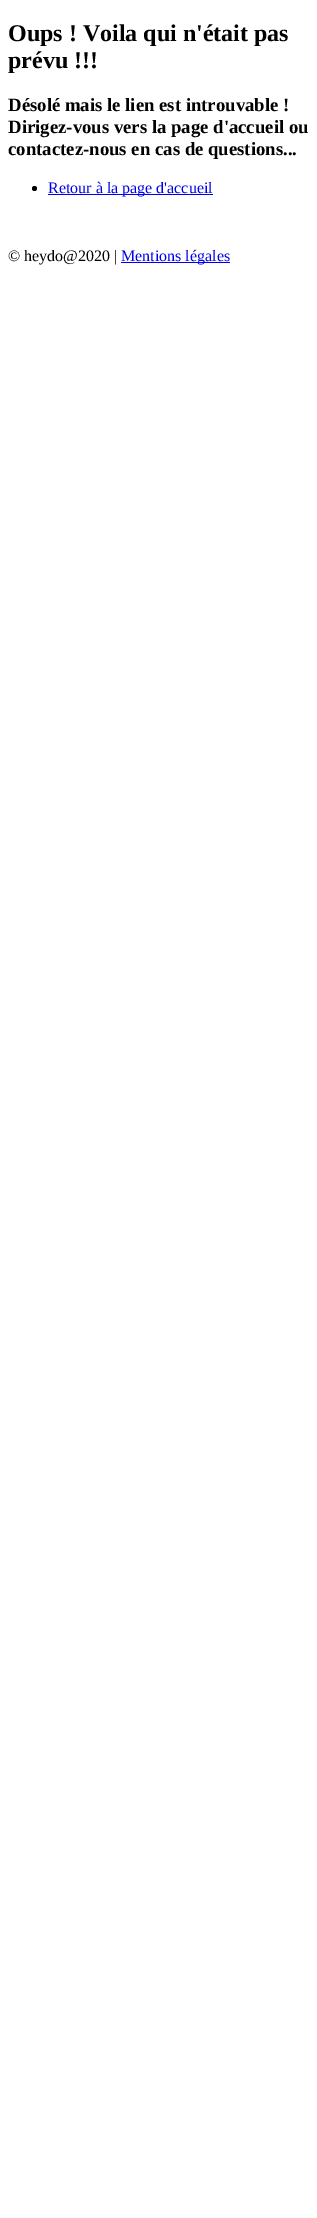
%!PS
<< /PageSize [317 2218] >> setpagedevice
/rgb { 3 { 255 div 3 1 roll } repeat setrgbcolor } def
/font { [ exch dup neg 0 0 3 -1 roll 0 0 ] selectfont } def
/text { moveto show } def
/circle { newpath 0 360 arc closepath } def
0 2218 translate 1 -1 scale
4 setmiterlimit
255 255 255 rgb
0 0 317 2218 rectfill
0 0 0 rgb
34.5 188.5 2.5 circle fill
0 0 238 rgb
48 194 165 1 rectfill
121 262 109 1 rectfill
/LiberationSerif-Bold 24 font
0 0 0 rgb
(Oups ! Voila qui n'était pas) 8 41 text
(prévu !!!) 8 68 text
/LiberationSerif-Bold 18.75 font
(Désolé mais le lien est introuvable !) 8 111 text
(Dirigez-vous vers la page d'accueil ou) 8 133 text
(contactez-nous en cas de questions...) 8 155 text
/LiberationSerif-Regular 16 font
0 0 238 rgb
(Retour à la page d'accueil) 48 193 text
0 0 0 rgb
(© heydo@2020 |) 8 261 text
0 0 238 rgb
(Mentions légales) 121 261 text
showpage
